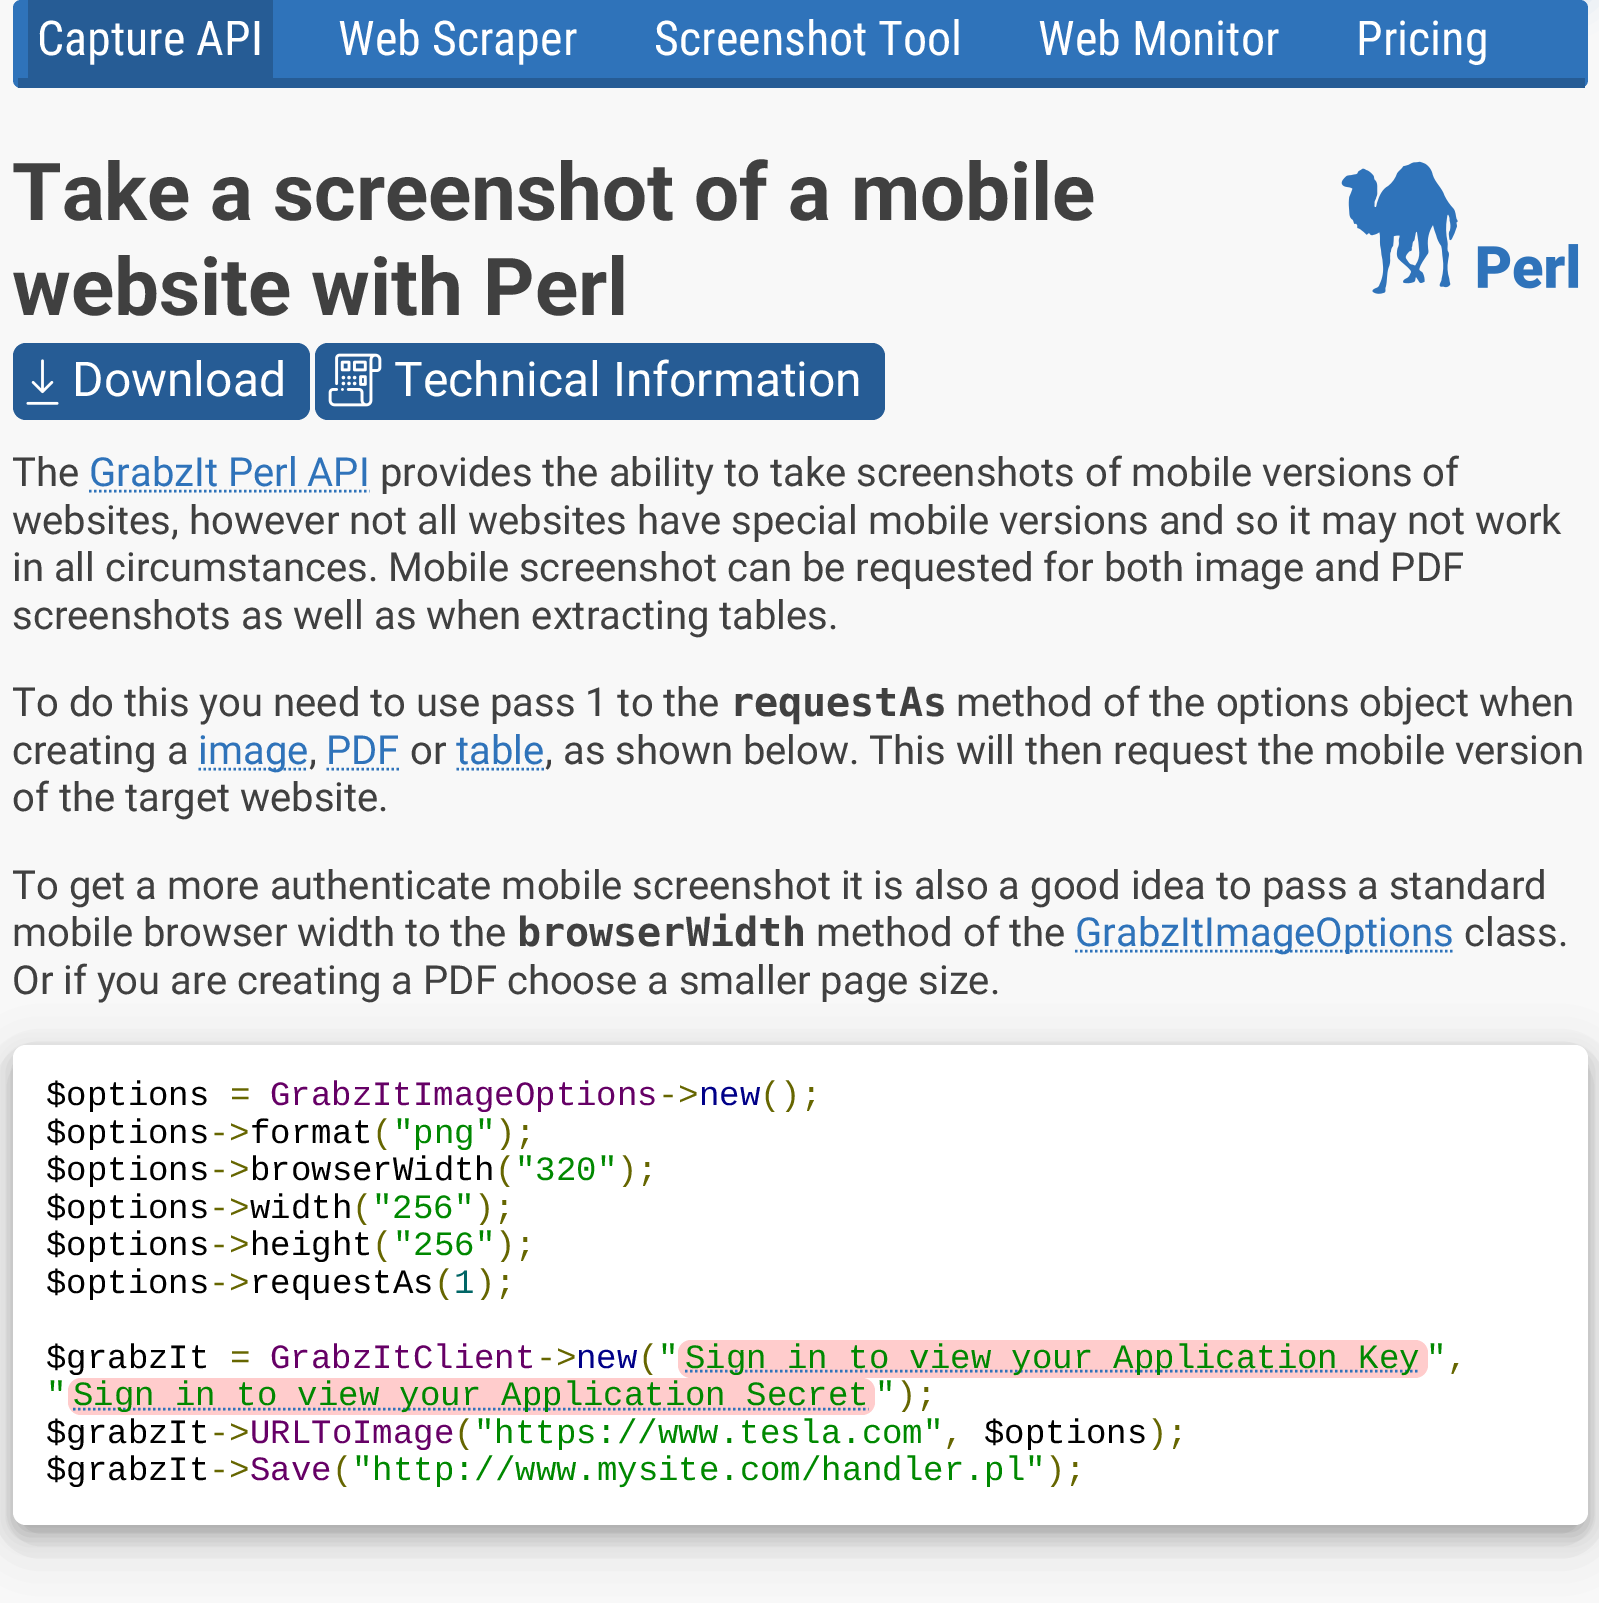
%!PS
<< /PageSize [1599 1603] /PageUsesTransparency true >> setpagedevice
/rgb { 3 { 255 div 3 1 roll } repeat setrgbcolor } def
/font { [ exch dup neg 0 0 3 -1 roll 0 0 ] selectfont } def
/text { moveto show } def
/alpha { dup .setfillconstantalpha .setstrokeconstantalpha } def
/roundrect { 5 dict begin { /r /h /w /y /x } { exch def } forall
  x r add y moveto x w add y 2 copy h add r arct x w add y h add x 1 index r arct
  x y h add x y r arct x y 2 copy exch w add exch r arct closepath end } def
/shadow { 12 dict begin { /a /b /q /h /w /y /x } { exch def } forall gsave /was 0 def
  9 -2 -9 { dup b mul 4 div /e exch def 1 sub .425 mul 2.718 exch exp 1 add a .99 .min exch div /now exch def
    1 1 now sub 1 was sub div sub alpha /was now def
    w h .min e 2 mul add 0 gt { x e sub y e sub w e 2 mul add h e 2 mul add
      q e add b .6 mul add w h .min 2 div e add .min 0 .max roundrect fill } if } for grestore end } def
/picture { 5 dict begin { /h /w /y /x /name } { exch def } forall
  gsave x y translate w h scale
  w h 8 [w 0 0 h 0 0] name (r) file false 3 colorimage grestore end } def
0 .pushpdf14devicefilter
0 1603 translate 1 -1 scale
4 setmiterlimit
248 248 248 rgb
0 0 1599 1603 rectfill
71 138 209 rgb
1210 -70 378 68 13 19 0.35 shadow
47 115 186 rgb
13 0 1575 88 8 roundrect fill
38 92 149 rgb
18 78 1567 10 rectfill
28 0 245 78 rectfill
13 343 297 77 13 roundrect fill
(img_01.rgb) 26 359 33 46 picture
315 343 570 77 13 roundrect fill
(img_02.rgb) 328 353 54 54 picture
(img_03.rgb) 1341 161 238 133 picture
47 115 186 rgb
2.5 setlinewidth
[2.5 2.5] 0 setdash
89 491 moveto 280.5 0 rlineto stroke
198.5 769 moveto 110 0 rlineto stroke
326.5 769 moveto 73.5 0 rlineto stroke
456.5 769 moveto 88 0 rlineto stroke
1075 951 moveto 378.5 0 rlineto stroke
0 0 0 rgb
13 1060 1575 480 13 25 0.19 shadow
13 1055 1575 480 13 10 0.2 shadow
255 255 255 rgb
13 1045 1575 480 13 roundrect fill
255 204 204 rgb
678 1340 750 38 13 roundrect fill
47 115 186 rgb
685 1371 moveto 734.5 0 rlineto stroke
255 204 204 rgb
68 1378 807 37 13 roundrect fill
47 115 186 rgb
73 1409 moveto 795.5 0 rlineto stroke
/RobotoCondensed-Regular 48 font
255 255 255 rgb
(Capture API) 37 55 text
(Web Scraper) 338 55 text
(Screenshot Tool) 654 55 text
(Web Monitor) 1038 55 text
(Pricing) 1356 55 text
/Roboto-Bold 80 font
64 64 64 rgb
(Take a screenshot of a mobile) 12 220 text
(website with Perl) 12 315 text
/Roboto-Regular 48 font
255 255 255 rgb
(Download) 72 396 text
(Technical Information) 394 396 text
/Roboto-Regular 40 font
64 64 64 rgb
(The) 12 486 text
47 115 186 rgb
(GrabzIt Perl API) 89 486 text
64 64 64 rgb
(provides the ability to take screenshots of mobile versions of) 380 486 text
(websites, however not all websites have special mobile versions and so it may not work) 12 534 text
(in all circumstances. Mobile screenshot can be requested for both image and PDF) 12 581 text
(screenshots as well as when extracting tables.) 12 629 text
(To do this you need to use pass 1 to the) 12 716 text
/DejaVuSansMono-Bold 40 font
(requestAs) 730 716 text
/Roboto-Regular 40 font
(method of the options object when) 956 716 text
(creating a) 12 764 text
47 115 186 rgb
(image) 198 764 text
64 64 64 rgb
(,) 309 764 text
47 115 186 rgb
(PDF) 326 764 text
64 64 64 rgb
(or) 410 764 text
47 115 186 rgb
(table) 456 764 text
64 64 64 rgb
(, as shown below. This will then request the mobile version) 545 764 text
(of the target website.) 12 811 text
(To get a more authenticate mobile screenshot it is also a good idea to pass a standard) 12 899 text
(mobile browser width to the) 12 946 text
/DejaVuSansMono-Bold 40 font
(browserWidth) 517 946 text
/Roboto-Regular 40 font
(method of the) 816 946 text
47 115 186 rgb
(GrabzItImageOptions) 1075 946 text
64 64 64 rgb
(class.) 1464 946 text
(Or if you are creating a PDF choose a smaller page size.) 12 994 text
/LiberationMono-Regular 34 font
0 0 0 rgb
($options) 46 1105 text
102 102 0 rgb
(=) 230 1105 text
102 0 102 rgb
(GrabzItImageOptions) 270 1105 text
102 102 0 rgb
(->) 658 1105 text
0 0 136 rgb
(new) 699 1105 text
102 102 0 rgb
(\(\);) 760 1105 text
0 0 0 rgb
($options) 46 1143 text
102 102 0 rgb
(->) 209 1143 text
0 0 0 rgb
(format) 250 1143 text
102 102 0 rgb
(\() 372 1143 text
0 136 0 rgb
("png") 393 1143 text
102 102 0 rgb
(\);) 495 1143 text
0 0 0 rgb
($options) 46 1180 text
102 102 0 rgb
(->) 209 1180 text
0 0 0 rgb
(browserWidth) 250 1180 text
102 102 0 rgb
(\() 495 1180 text
0 136 0 rgb
("320") 515 1180 text
102 102 0 rgb
(\);) 617 1180 text
0 0 0 rgb
($options) 46 1218 text
102 102 0 rgb
(->) 209 1218 text
0 0 0 rgb
(width) 250 1218 text
102 102 0 rgb
(\() 352 1218 text
0 136 0 rgb
("256") 372 1218 text
102 102 0 rgb
(\);) 474 1218 text
0 0 0 rgb
($options) 46 1255 text
102 102 0 rgb
(->) 209 1255 text
0 0 0 rgb
(height) 250 1255 text
102 102 0 rgb
(\() 372 1255 text
0 136 0 rgb
("256") 393 1255 text
102 102 0 rgb
(\);) 495 1255 text
0 0 0 rgb
($options) 46 1293 text
(requestAs) 250 1293 text
102 102 0 rgb
(\( \);) 434 1293 text
(->) 209 1293 text
0 102 102 rgb
(1) 454 1293 text
0 0 0 rgb
($grabzIt) 46 1368 text
102 102 0 rgb
(=) 230 1368 text
102 0 102 rgb
(GrabzItClient) 270 1368 text
102 102 0 rgb
(->) 536 1368 text
0 0 136 rgb
(new) 576 1368 text
102 102 0 rgb
(\() 638 1368 text
0 136 0 rgb
(") 658 1368 text
(Sign in to view your Application Key) 685 1368 text
(") 1426 1368 text
102 102 0 rgb
(,) 1447 1368 text
0 136 0 rgb
(") 46 1405 text
(Sign in to view your Application Secret) 73 1405 text
(") 875 1405 text
102 102 0 rgb
(\);) 896 1405 text
0 0 0 rgb
($grabzIt) 46 1443 text
102 102 0 rgb
(->) 209 1443 text
102 0 102 rgb
(URLToImage) 250 1443 text
102 102 0 rgb
(\() 454 1443 text
0 136 0 rgb
("https://www.tesla.com") 474 1443 text
0 0 0 rgb
($options) 984 1443 text
102 102 0 rgb
(\);) 1147 1443 text
(,) 943 1443 text
0 0 0 rgb
($grabzIt) 46 1480 text
102 102 0 rgb
(->) 209 1480 text
102 0 102 rgb
(Save) 250 1480 text
102 102 0 rgb
(\() 332 1480 text
0 136 0 rgb
("http://www.mysite.com/handler.pl") 352 1480 text
102 102 0 rgb
(\);) 1045 1480 text
.poppdf14devicefilter showpage
